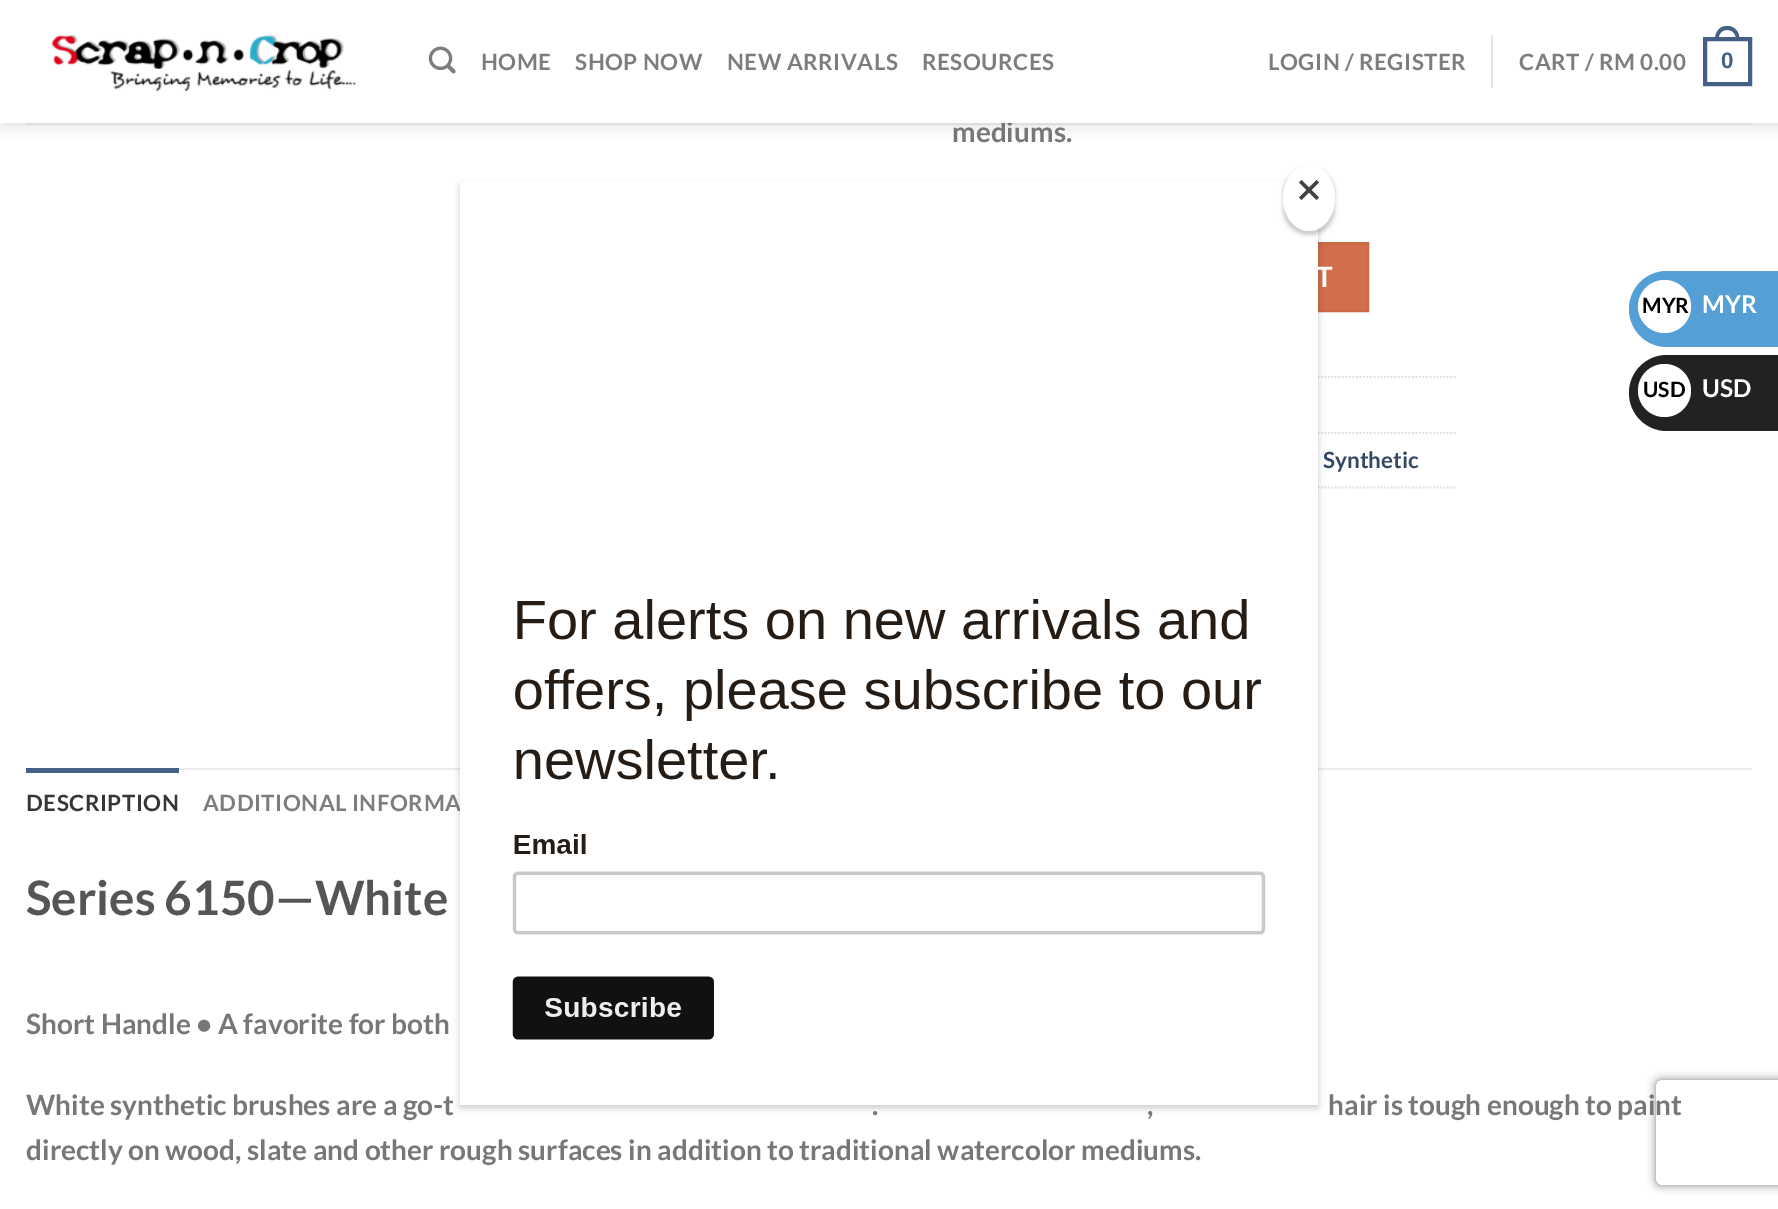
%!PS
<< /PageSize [1778 1209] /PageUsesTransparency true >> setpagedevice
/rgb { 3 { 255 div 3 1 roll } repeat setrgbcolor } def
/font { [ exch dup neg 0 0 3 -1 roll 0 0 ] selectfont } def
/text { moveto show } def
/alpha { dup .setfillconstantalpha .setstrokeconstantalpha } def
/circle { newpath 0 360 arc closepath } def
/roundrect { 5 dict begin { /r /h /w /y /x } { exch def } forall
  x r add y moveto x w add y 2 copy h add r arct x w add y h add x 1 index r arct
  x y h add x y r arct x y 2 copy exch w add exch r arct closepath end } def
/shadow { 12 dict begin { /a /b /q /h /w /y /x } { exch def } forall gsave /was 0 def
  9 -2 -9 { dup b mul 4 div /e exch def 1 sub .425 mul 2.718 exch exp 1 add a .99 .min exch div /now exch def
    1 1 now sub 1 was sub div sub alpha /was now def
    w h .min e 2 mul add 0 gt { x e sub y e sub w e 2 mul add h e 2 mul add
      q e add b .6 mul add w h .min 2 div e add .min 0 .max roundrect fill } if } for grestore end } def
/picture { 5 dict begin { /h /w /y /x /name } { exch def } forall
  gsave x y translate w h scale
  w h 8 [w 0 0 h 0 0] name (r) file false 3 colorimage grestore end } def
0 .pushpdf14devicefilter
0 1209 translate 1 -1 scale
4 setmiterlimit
255 255 255 rgb
0 0 1778 1209 rectfill
gsave
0 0 moveto 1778 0 rlineto 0 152 rlineto -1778 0 rlineto closepath 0 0 moveto 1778 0 rlineto 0 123 rlineto -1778 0 rlineto closepath eoclip newpath
0 0 0 rgb
2 2 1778 122 0 9 0.15 shadow
grestore
(img_01.rgb) 51 34 306 58 picture
(img_02.rgb) 428 46 28 28 picture
230 230 230 rgb
1491 35 2 53 rectfill
68 96 132 rgb
4 setlinewidth
1705 39 45 45 rectstroke
1727 26 moveto 8.5 0 12.5 6.5 12.5 14 rcurveto -24.5 0 rlineto 0 -7.5 4 -14 12 -14 rcurveto closepath 1727 30 moveto 6.5 0 9 4.5 9 10 rcurveto -17.5 0 rlineto 0 -5.5 2.5 -10 8.5 -10 rcurveto closepath eofill
0.1 alpha
119 119 119 rgb
26 123 1726 2 rectfill
1 alpha
210 110 75 rgb
1318 244 49 66 rectfill
200 105 71 rgb
2 setlinewidth
1105 243 263 68 rectstroke
221 221 221 rgb
1.8 setlinewidth
[1.75 1.75] 0 setdash
915 377 moveto 541 0 rlineto stroke
915 433 moveto 541 0 rlineto stroke
915 487.5 moveto 541 0 rlineto stroke
236 236 236 rgb
179 768 1573 2 rectfill
68 96 132 rgb
26 768 153 5 rectfill
gsave
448 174 moveto 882 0 rlineto 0 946 rlineto -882 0 rlineto closepath 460 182 moveto 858 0 rlineto 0 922 rlineto -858 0 rlineto closepath eoclip newpath
0 0 0 rgb
460 186 858 922 0 3.5 0.2 shadow
grestore
83 159 214 rgb
1667 271 moveto 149 0 rlineto 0 76 rlineto -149 0 rlineto -21 0 -38 -17 -38 -38 rcurveto 0 -21 17 -38 38 -38 rcurveto closepath fill
255 255 255 rgb
1664.5 306.5 26.5 circle fill
34 34 34 rgb
1667 355 moveto 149 0 rlineto 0 76 rlineto -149 0 rlineto -21 0 -38 -17 -38 -38 rcurveto 0 -21 17 -38 38 -38 rcurveto closepath fill
255 255 255 rgb
1664.5 390.5 26.5 circle fill
gsave
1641 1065 moveto 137 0 rlineto 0 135 rlineto -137 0 rlineto closepath 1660 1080 moveto 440 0 rlineto 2 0 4 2 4 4 rcurveto 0 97 rlineto 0 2 -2 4 -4 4 rcurveto -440 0 rlineto -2 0 -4 -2 -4 -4 rcurveto 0 -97 rlineto 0 -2 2 -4 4 -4 rcurveto closepath eoclip newpath
128 128 128 rgb
1656 1080 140 105 4 4.5 1 shadow
grestore
/Lato-Bold 22.4 font
125 125 125 rgb
481 70 moveto 0.5 0 (HOME) ashow
575 70 moveto 0.5 0 (SHOP NOW) ashow
727 70 moveto 0.5 0 (NEW ARRIVALS) ashow
922 70 moveto 0.5 0 (RESOURCES) ashow
1268 70 moveto 0.5 0 (LOGIN / REGISTER) ashow
1519 70 moveto 0.5 0 (CART / RM 0.00) ashow
/LiberationSans-Bold 22.4 font
68 96 132 rgb
1721 68 moveto 0.5 0 (0) ashow
/Lato-Bold 28 font
119 119 119 rgb
(mediums.) 952 142 text
0.9 alpha
255 255 255 rgb
0 121 1778 2 rectfill
1 alpha
1316 287 moveto 1 0 (T) ashow
/Lato-Bold 22.4 font
51 72 98 rgb
(Synthetic) 1323 468 text
54 54 54 rgb
26 811 moveto 0.5 0 (DESCRIPTION) ashow
125 125 125 rgb
203 811 moveto 0.5 0 (ADDITIONAL INFORMA) ashow
/Lato-Bold 47.5 font
85 85 85 rgb
(Series 6150—White) 26 915 text
/Lato-Bold 28 font
119 119 119 rgb
(Short Handle • A favorite for both) 26 1034 text
(White synthetic brushes are a go-t) 26 1115 text
(.) 872 1115 text
(,) 1147 1115 text
(hair is tough enough to paint) 1328 1115 text
(directly on wood, slate and other rough surfaces in addition to traditional watercolor mediums.) 26 1160 text
(img_03.rgb) 460 187 858 918 picture
0 0 0 rgb
1283 168 52 67 26 2 0.2 shadow
255 255 255 rgb
1309 165 moveto 14.5 0 26 15 26 33 rcurveto 0 18 -11.5 33 -26 33 rcurveto -14.5 0 -26 -15 -26 -33 rcurveto 0 -18 11.5 -33 26 -33 rcurveto closepath fill
65 65 65 rgb
1316.5 180 moveto 2.5 2.5 rlineto -17.5 17.5 rlineto -2.5 -2.5 rlineto closepath fill
1299 182.5 moveto 2.5 -2.5 rlineto 17.5 17.5 rlineto -2.5 2.5 rlineto closepath fill
/Lato-Bold 21 font
0 0 0 rgb
(MYR) 1642 313 text
/Lato-Bold 24.5 font
255 255 255 rgb
(MYR) 1702 313 text
/Lato-Bold 21 font
0 0 0 rgb
(USD) 1643 397 text
/Lato-Bold 24.5 font
255 255 255 rgb
(USD) 1702 397 text
.poppdf14devicefilter showpage
